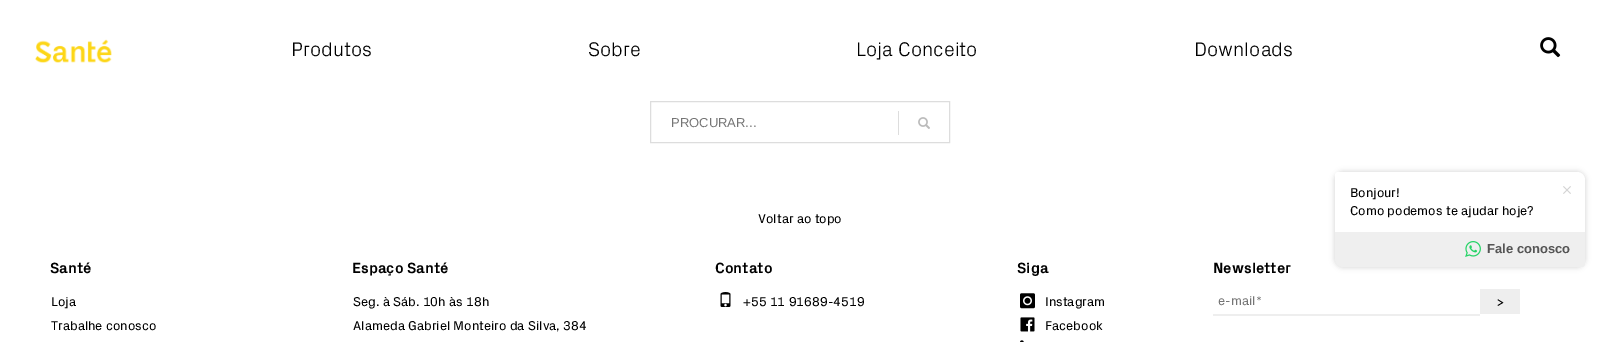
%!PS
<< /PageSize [1600 342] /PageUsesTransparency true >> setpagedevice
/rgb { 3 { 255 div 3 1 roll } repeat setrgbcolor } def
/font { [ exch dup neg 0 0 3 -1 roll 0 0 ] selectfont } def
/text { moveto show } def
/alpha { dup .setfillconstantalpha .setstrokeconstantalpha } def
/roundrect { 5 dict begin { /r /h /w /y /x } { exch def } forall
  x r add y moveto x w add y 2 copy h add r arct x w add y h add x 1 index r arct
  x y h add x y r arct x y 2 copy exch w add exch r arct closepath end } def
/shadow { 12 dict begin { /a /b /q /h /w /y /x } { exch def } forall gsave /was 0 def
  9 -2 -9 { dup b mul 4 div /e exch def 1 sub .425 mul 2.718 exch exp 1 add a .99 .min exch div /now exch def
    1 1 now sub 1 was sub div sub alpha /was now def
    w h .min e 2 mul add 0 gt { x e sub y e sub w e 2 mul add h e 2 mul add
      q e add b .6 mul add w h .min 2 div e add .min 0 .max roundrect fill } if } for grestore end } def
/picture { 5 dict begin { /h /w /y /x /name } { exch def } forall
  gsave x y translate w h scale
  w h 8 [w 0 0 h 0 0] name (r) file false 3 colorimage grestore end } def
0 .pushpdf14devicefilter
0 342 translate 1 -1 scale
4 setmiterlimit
255 255 255 rgb
0 0 1600 342 rectfill
(img_01.rgb) 35 39 77 24 picture
(img_02.rgb) 1540 37 21 21 picture
221 221 221 rgb
650.5 101.5 299 41 rectstroke
898 111 1 24 rectfill
(img_03.rgb) 918 117 12 12 picture
(img_04.rgb) 720 292 11 15 picture
(img_05.rgb) 1020 293 15 16 picture
(img_06.rgb) 1020 317 15 15 picture
(img_07.rgb) 1020 340 4 2 picture
238 238 238 rgb
1213 314 267 2 rectfill
1480 289 40 25 rectfill
0 0 0 rgb
1334 171 252 97 9 2.5 0.14 shadow
239 239 239 rgb
1335 231 moveto 250 0 rlineto 0 33 rlineto 0 1.5 -1.5 3 -3 3 rcurveto -239 0 rlineto -4.5 0 -8 -3.5 -8 -8 rcurveto closepath fill
255 255 255 rgb
1338 172 moveto 239 0 rlineto 4.5 0 8 3.5 8 8 rcurveto 0 52 rlineto -250 0 rlineto 0 -57 rlineto 0 -1.5 1.5 -3 3 -3 rcurveto closepath fill
(img_08.rgb) 1563 186 8 8 picture
(img_09.rgb) 1465 241 16 16 picture
/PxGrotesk-Light 20 font
0 0 0 rgb
(Produtos) 291 56 text
(Sobre) 588 56 text
(Loja Conceito) 856 56 text
(Downloads) 1194 56 text
/LiberationSans-Regular 13 font
117 117 117 rgb
(PROCURAR...) 671 127 text
/PxGrotesk-Regular 13 font
0 0 0 rgb
(Voltar ao topo) 758 223 text
/PxGrotesk-Bold 15 font
(Santé) 50 273 text
/PxGrotesk-Regular 13 font
(Loja) 51 306 text
(Trabalhe conosco) 51 330 text
/PxGrotesk-Bold 15 font
(Espaço Santé) 352 273 text
/PxGrotesk-Regular 13 font
(Seg. à Sáb. 10h às 18h) 353 306 text
(Alameda Gabriel Monteiro da Silva, 384) 353 330 text
/PxGrotesk-Bold 15 font
(Contato) 715 273 text
/PxGrotesk-Regular 13 font
(+55 11 91689-4519) 743 306 text
/PxGrotesk-Bold 15 font
(Siga) 1017 273 text
/PxGrotesk-Regular 13 font
(Instagram) 1045 306 text
(Facebook) 1045 330 text
/PxGrotesk-Bold 15 font
(Newsletter) 1213 273 text
/PxGrotesk-Regular 13 font
117 117 117 rgb
(e-mail*) 1218 305 text
/Raleway-Medium 13 font
0 0 0 rgb
(>) 1497 306 text
/PxGrotesk-Regular 13 font
(Bonjour!) 1350 197 text
(Como podemos te ajudar hoje?) 1350 215 text
/LiberationSans-Bold 13 font
85 85 85 rgb
(Fale conosco) 1487 253 text
.poppdf14devicefilter showpage
